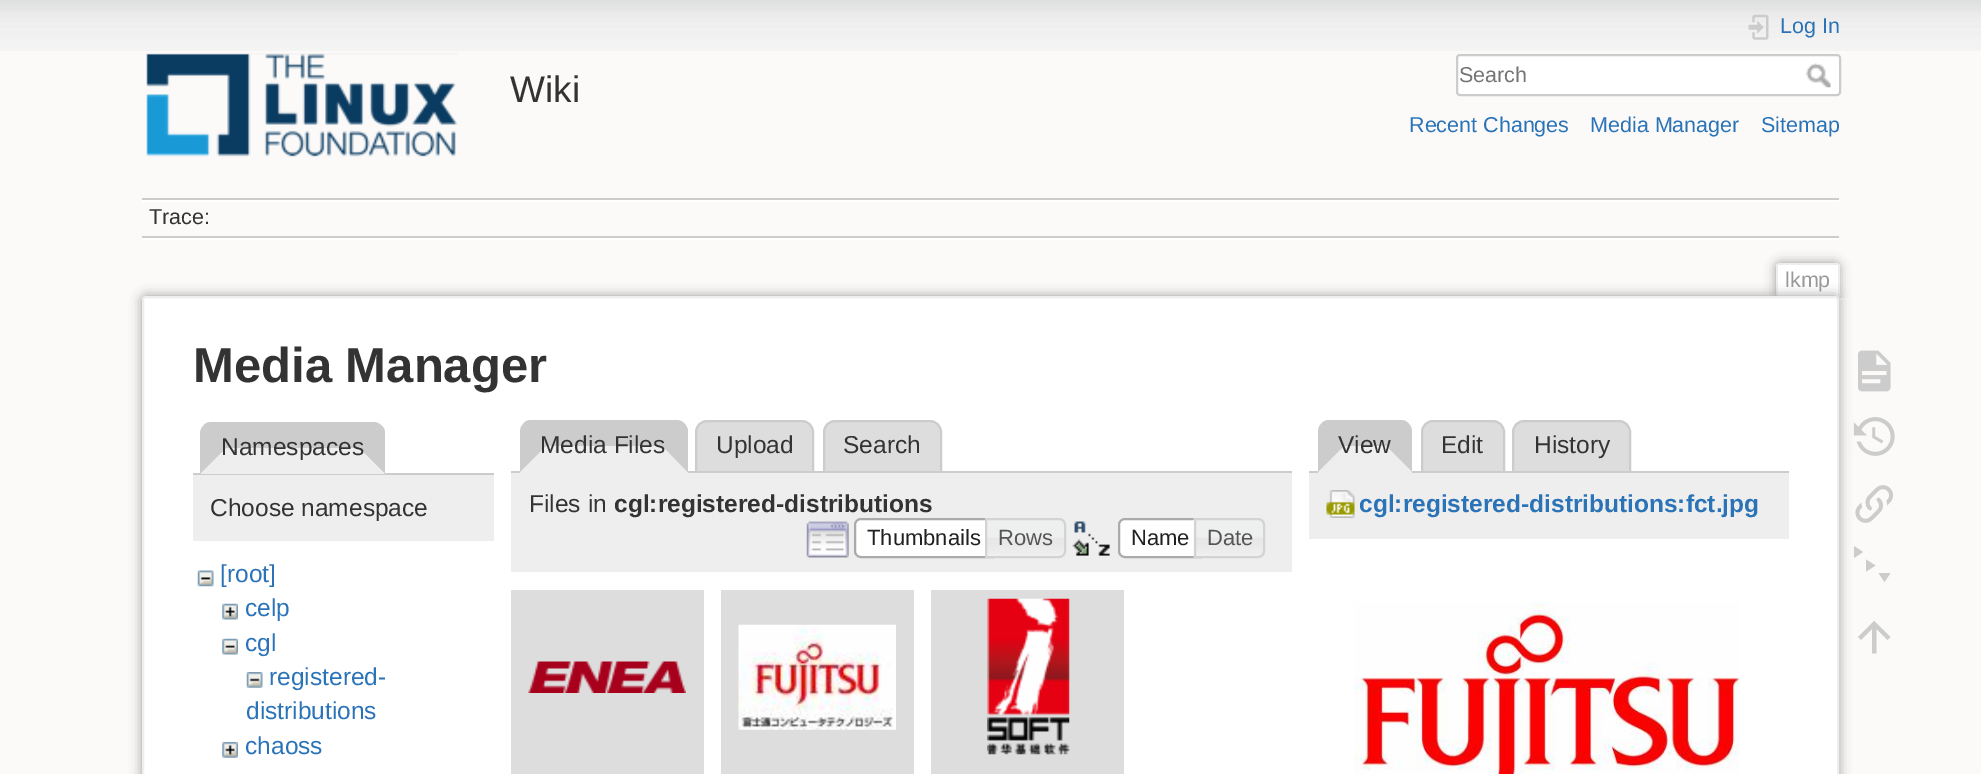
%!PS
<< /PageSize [1981 774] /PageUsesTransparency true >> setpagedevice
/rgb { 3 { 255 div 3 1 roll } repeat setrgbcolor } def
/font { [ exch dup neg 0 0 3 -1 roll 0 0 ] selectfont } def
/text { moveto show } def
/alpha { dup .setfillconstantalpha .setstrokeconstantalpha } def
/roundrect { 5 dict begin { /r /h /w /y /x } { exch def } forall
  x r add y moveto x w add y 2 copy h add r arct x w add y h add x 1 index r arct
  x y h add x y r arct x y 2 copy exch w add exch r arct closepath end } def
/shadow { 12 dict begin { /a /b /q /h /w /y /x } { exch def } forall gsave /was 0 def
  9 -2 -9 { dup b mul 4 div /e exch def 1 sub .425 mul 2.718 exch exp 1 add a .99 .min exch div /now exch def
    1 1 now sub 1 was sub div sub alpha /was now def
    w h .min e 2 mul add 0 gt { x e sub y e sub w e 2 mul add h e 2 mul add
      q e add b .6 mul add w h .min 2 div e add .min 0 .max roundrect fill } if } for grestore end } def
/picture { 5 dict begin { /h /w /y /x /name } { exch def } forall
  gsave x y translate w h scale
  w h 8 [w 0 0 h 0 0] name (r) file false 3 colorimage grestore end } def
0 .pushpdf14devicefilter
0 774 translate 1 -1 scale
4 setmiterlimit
251 250 249 rgb
0 0 1981 774 rectfill
(img_01.rgb) 0 0 1981 51 picture
(img_02.rgb) 146 53 312 104 picture
(img_03.rgb) 1748 14 21 26 picture
255 255 255 rgb
1457 55 383 40 3 roundrect gsave fill grestore
204 204 204 rgb
2 setlinewidth
stroke
(img_04.rgb) 1806 63 25 25 picture
142 198 1697 2 rectfill
255 255 255 rgb
142 238 1697 2 rectfill
142 200 1697 2 rectfill
204 204 204 rgb
142 236 1697 2 rectfill
gsave
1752 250 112 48 rectclip
153 153 153 rgb
1776 263 63 35 4 5.5 1 shadow
grestore
255 255 255 rgb
1780 264 moveto 56 0 rlineto 1 0 2 1 2 2 rcurveto 0 32 rlineto -60 0 rlineto 0 -32 rlineto 0 -1 1 -2 2 -2 rcurveto closepath fill
238 238 238 rgb
1778 263 60 2 rectfill
1838 264 2 34 rectfill
1776 264 2 34 rectfill
153 153 153 rgb
142 296 1697 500 4 6 1 shadow
255 255 255 rgb
143 297 1695 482 3 roundrect gsave fill grestore
238 238 238 rgb
stroke
204 204 204 rgb
212 422 moveto -4 0 -7 1 -9 4 rcurveto 23 22 rlineto 133 0 rlineto 22 -23 rlineto -2 -2 -5 -3 -8 -3 rcurveto closepath fill
193 473 301 2 rectfill
385 474 moveto -26 -26 rlineto 22 -23 rlineto 3 2 4 5 4 9 rcurveto closepath fill
238 238 238 rgb
385 474 moveto -26 -26 rlineto -133 0 rlineto -26 26 rlineto closepath fill
204 204 204 rgb
203 426 moveto -2 2 -3 5 -3 8 rcurveto 0 40 rlineto 26 -26 rlineto closepath fill
238 238 238 rgb
193 475 301 66 rectfill
(img_05.rgb) 197 570 17 17 picture
(img_06.rgb) 222 603 16 17 picture
(img_07.rgb) 222 638 16 17 picture
(img_08.rgb) 246 672 17 16 picture
(img_09.rgb) 222 742 16 16 picture
221 221 221 rgb
707 421 moveto 95 0 rlineto 6 0 11 5 11 11 rcurveto 0 40 rlineto -117 0 rlineto 0 -40 rlineto 0 -6 5 -11 11 -11 rcurveto closepath gsave fill grestore
204 204 204 rgb
stroke
221 221 221 rgb
835 421 moveto 95 0 rlineto 6 0 11 5 11 11 rcurveto 0 40 rlineto -117 0 rlineto 0 -40 rlineto 0 -6 5 -11 11 -11 rcurveto closepath gsave fill grestore
204 204 204 rgb
stroke
511 471 781 2 rectfill
238 238 238 rgb
532 420 moveto 144 0 rlineto 6.5 0 12 5.5 12 12 rcurveto 0 41 rlineto -168 0 rlineto 0 -41 rlineto 0 -6.5 5.5 -12 12 -12 rcurveto closepath fill
204 204 204 rgb
532 420 moveto 144 0 rlineto 3 0 6 1 8 3 rcurveto -22 23 rlineto -116 0 rlineto -23 -22 rlineto 2 -3 5 -4 9 -4 rcurveto closepath fill
684 423 moveto -22 23 rlineto 25 26 rlineto 1 0 rlineto 0 -42 rlineto -1 -3 -2 -5 -4 -7 rcurveto closepath fill
238 238 238 rgb
687 472 moveto -25 -26 rlineto -116 0 rlineto -26 26 rlineto closepath fill
204 204 204 rgb
523 424 moveto -2 2 -3 5 -3 8 rcurveto 0 40 rlineto 26 -26 rlineto closepath fill
238 238 238 rgb
511 473 781 99 rectfill
(img_10.rgb) 806 521 43 37 picture
255 255 255 rgb
861 518 moveto 133 0 rlineto 0 40 rlineto -133 0 rlineto -4 0 -7 -3 -7 -7 rcurveto 0 -26 rlineto 0 -4 3 -7 7 -7 rcurveto closepath fill
(img_11.rgb) 854 518 5 40 picture
170 170 170 rgb
861 519 moveto 132 0 rlineto 0 38 rlineto -132 0 rlineto -3.5 0 -6 -2.5 -6 -6 rcurveto 0 -26 rlineto 0 -3.5 2.5 -6 6 -6 rcurveto closepath stroke
(img_12.rgb) 987 518 79 40 picture
211 211 211 rgb
986 519 moveto 73 0 rlineto 3.5 0 6 2.5 6 6 rcurveto 0 26 rlineto 0 3.5 -2.5 6 -6 6 rcurveto -73 0 rlineto closepath stroke
(img_13.rgb) 1072 521 38 35 picture
255 255 255 rgb
1125 518 moveto 77 0 rlineto 0 40 rlineto -77 0 rlineto -4 0 -7 -3 -7 -7 rcurveto 0 -26 rlineto 0 -4 3 -7 7 -7 rcurveto closepath fill
(img_14.rgb) 1120 556 3 2 picture
170 170 170 rgb
1125 519 moveto 76 0 rlineto 0 38 rlineto -76 0 rlineto -3.5 0 -6 -2.5 -6 -6 rcurveto 0 -26 rlineto 0 -3.5 2.5 -6 6 -6 rcurveto closepath stroke
(img_15.rgb) 1193 518 72 40 picture
211 211 211 rgb
1195 519 moveto 63 0 rlineto 3.5 0 6 2.5 6 6 rcurveto 0 26 rlineto 0 3.5 -2.5 6 -6 6 rcurveto -63 0 rlineto closepath stroke
221 221 221 rgb
511 590 193 184 rectfill
(img_16.rgb) 528 661 158 32 picture
721 590 193 184 rectfill
(img_17.rgb) 738 624 158 106 picture
931 590 193 184 rectfill
(img_18.rgb) 987 598 83 157 picture
1433 421 moveto 60 0 rlineto 6 0 11 5 11 11 rcurveto 0 40 rlineto -82 0 rlineto 0 -40 rlineto 0 -6 5 -11 11 -11 rcurveto closepath gsave fill grestore
204 204 204 rgb
stroke
221 221 221 rgb
1524 421 moveto 95 0 rlineto 6 0 11 5 11 11 rcurveto 0 40 rlineto -117 0 rlineto 0 -40 rlineto 0 -6 5 -11 11 -11 rcurveto closepath gsave fill grestore
204 204 204 rgb
stroke
1309 471 480 2 rectfill
238 238 238 rgb
1330 420 moveto 70 0 rlineto 6.5 0 12 5.5 12 12 rcurveto 0 41 rlineto -94 0 rlineto 0 -41 rlineto 0 -6.5 5.5 -12 12 -12 rcurveto closepath fill
204 204 204 rgb
1330 420 moveto 70 0 rlineto 4 0 7 1 9 4 rcurveto -23 22 rlineto -42 0 rlineto -23 -22 rlineto 2 -3 5 -4 9 -4 rcurveto closepath fill
1409 424 moveto -23 22 rlineto 26 26 rlineto 0 -40 rlineto 0 -3 -1 -6 -3 -8 rcurveto closepath fill
238 238 238 rgb
1412 472 moveto -26 -26 rlineto -42 0 rlineto -26 26 rlineto closepath fill
204 204 204 rgb
1321 424 moveto -2 2 -3 5 -3 8 rcurveto 0 40 rlineto 26 -26 rlineto closepath fill
238 238 238 rgb
1309 473 480 66 rectfill
(img_19.rgb) 1326 490 29 28 picture
(img_20.rgb) 1354 602 386 172 picture
(img_21.rgb) 1858 350 33 42 picture
(img_22.rgb) 1853 417 42 39 picture
(img_23.rgb) 1855 485 39 38 picture
204 204 204 rgb
1854 546 moveto 9 6 rlineto -9 6 rlineto closepath 1866 559.5 moveto 9.5 6 rlineto -9.5 6 rlineto closepath 1878.5 573 moveto 12 0 rlineto -6 9 rlineto closepath fill
1876.5 653.5 moveto -4.5 0 rlineto 0 -24.5 rlineto -11 11 rlineto -3 -3 rlineto 16 -16 rlineto 16.5 16 rlineto -3 3 rlineto -11 -11 rlineto closepath fill
/LiberationSans-Regular 37 font
51 51 51 rgb
(Wiki) 510 102 text
/LiberationSans-Regular 21.5 font
43 115 183 rgb
(Log In) 1780 33 text
117 117 117 rgb
(Search) 1459 82 text
43 115 183 rgb
(Recent Changes) 1409 132 text
(Media Manager) 1590 132 text
(Sitemap) 1761 132 text
51 51 51 rgb
(Trace:) 149 224 text
153 153 153 rgb
(lkmp) 1785 287 text
/LiberationSans-Bold 49 font
51 51 51 rgb
(Media Manager) 193 382 text
/LiberationSans-Regular 24.5 font
(Namespaces) 221 455 text
(Choose namespace) 210 516 text
43 115 183 rgb
([root]) 220 582 text
(celp) 245 616 text
(cgl) 245 651 text
(registered-) 269 685 text
(distributions) 246 719 text
(chaoss) 245 754 text
51 51 51 rgb
(Media Files) 540 453 text
(Upload) 716 453 text
(Search) 843 453 text
(Files in) 529 512 text
/LiberationSans-Bold 24.5 font
(cgl:registered-distributions) 614 512 text
/LiberationSans-Regular 22 font
33 33 33 rgb
(Thumbnails) 867 545 text
85 85 85 rgb
(Rows) 998 545 text
33 33 33 rgb
(Name) 1131 545 text
85 85 85 rgb
(Date) 1207 545 text
/LiberationSans-Regular 24.5 font
51 51 51 rgb
(View) 1338 453 text
(Edit) 1441 453 text
(History) 1534 453 text
/LiberationSans-Bold 24.5 font
43 115 183 rgb
(cgl:registered-distributions:fct.jpg) 1359 512 text
.poppdf14devicefilter showpage
